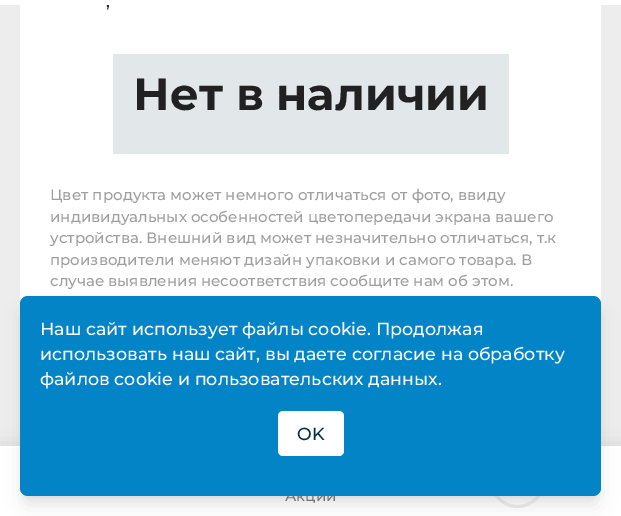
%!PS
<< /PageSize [621 516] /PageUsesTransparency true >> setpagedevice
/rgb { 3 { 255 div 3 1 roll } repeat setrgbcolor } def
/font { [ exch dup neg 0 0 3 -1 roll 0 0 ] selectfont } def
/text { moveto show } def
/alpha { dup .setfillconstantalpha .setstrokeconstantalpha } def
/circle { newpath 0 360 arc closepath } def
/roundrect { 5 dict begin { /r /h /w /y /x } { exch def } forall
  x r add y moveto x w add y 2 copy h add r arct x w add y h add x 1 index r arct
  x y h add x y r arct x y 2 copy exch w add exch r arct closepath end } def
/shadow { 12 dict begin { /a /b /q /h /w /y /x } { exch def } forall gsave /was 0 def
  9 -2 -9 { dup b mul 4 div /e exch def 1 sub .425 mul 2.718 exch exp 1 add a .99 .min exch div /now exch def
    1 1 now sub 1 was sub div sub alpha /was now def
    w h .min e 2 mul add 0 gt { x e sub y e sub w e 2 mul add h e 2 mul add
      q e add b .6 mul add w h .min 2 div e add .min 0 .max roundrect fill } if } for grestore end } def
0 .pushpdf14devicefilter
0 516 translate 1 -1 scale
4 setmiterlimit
237 237 237 rgb
0 0 621 516 rectfill
255 255 255 rgb
20 5 581 299 rectfill
226 231 233 rgb
113 54 396 100 rectfill
0 0 0 rgb
-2 448 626 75 0 9 0.12 shadow
255 255 255 rgb
0 446 621 70 rectfill
238 238 238 rgb
3 setlinewidth
517.5 480.5 26 circle stroke
0 0 0 rgb
25 306 571 190 2.5 4 0.1 shadow
24 313 574 192 4 9.5 0.1 shadow
/Montserrat-Medium 17.5 font
33 33 33 rgb
(,) 106 7 text
255 255 255 rgb
0 0 621 5 rectfill
/Montserrat-Bold 45 font
33 33 33 rgb
(Нет в наличии) 133 110 text
/Montserrat-Medium 15 font
158 158 158 rgb
(Цвет продукта может немного отличаться от фото, ввиду) 50 200 text
(индивидуальных особенностей цветопередачи экрана вашего) 50 222 text
(устройства. Внешний вид может незначительно отличаться, т.к) 50 243 text
(производители меняют дизайн упаковки и самого товара. В) 50 265 text
(случае выявления несоответствия сообщите нам об этом.) 50 286 text
117 117 117 rgb
(Акции) 285 501 text
2 132 199 rgb
20 296 581 200 8 roundrect fill
255 255 255 rgb
278 411 66 45 5 roundrect fill
/Montserrat-Medium 17.5 font
8 47 73 rgb
(OK) 297 440 text
255 255 255 rgb
(файлов cookie и пользовательских данных.) 40 385 text
(использовать наш сайт, вы даете согласие на обработку) 40 360 text
(Наш сайт использует файлы cookie. Продолжая) 40 335 text
.poppdf14devicefilter showpage
